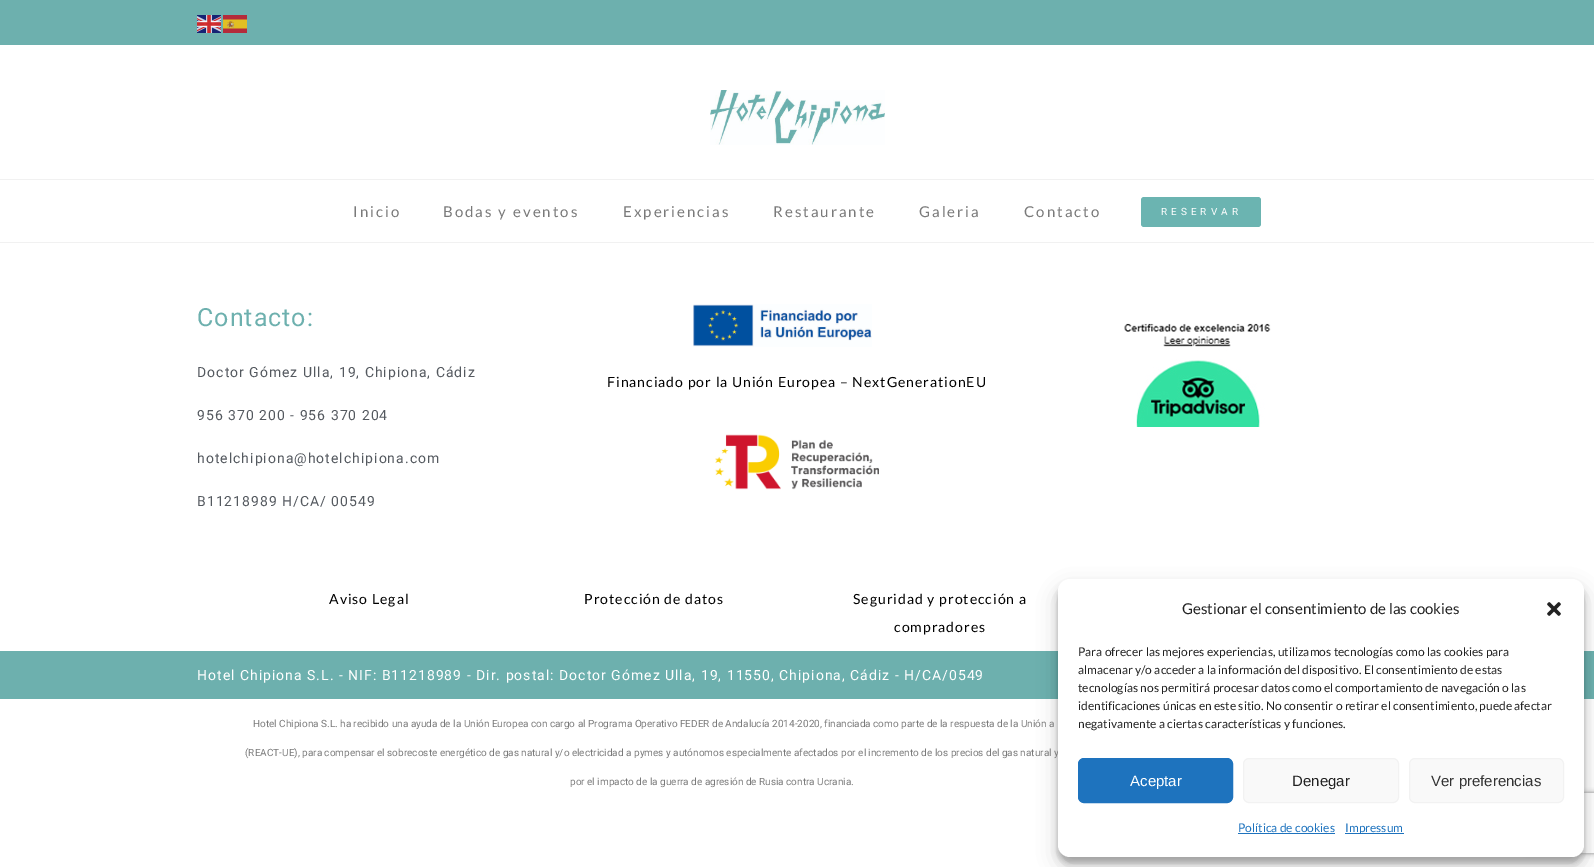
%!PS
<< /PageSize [1594 867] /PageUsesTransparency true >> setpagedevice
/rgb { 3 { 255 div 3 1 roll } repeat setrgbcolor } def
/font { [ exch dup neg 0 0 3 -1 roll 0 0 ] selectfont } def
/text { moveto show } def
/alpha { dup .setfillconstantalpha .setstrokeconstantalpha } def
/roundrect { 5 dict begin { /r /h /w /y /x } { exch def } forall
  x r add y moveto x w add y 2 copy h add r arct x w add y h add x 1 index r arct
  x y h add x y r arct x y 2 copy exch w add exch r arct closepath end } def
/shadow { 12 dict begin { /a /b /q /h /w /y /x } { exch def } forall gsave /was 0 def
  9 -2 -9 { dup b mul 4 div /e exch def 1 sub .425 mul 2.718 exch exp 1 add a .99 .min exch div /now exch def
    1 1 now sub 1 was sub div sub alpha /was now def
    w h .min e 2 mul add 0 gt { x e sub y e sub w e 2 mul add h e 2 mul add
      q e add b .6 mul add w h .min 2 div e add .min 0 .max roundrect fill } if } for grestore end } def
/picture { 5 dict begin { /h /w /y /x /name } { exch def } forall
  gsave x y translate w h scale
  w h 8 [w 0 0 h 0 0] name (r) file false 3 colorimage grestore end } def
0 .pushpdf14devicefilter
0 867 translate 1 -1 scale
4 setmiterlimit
255 255 255 rgb
0 0 1594 867 rectfill
109 176 174 rgb
0 0 1594 45 rectfill
(img_01.rgb) 197 15 24 18 picture
(img_02.rgb) 223 15 24 18 picture
(img_03.rgb) 710 90 175 55 picture
241 241 241 rgb
0 179 1594 1 rectfill
107 180 177 rgb
1141 197 120 30 3 roundrect fill
241 241 241 rgb
0 242 1594 1 rectfill
(img_04.rgb) 693 304 179 43 picture
(img_05.rgb) 715 434 164 56 picture
(img_06.rgb) 1124 323 147 104 picture
109 176 174 rgb
0 651 1594 48 rectfill
0 0 0 rgb
1058 585 526 278 12 3 0.23 shadow
1058 589 526 278 12 10 0.19 shadow
gsave
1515 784 moveto 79 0 rlineto 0 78 rlineto -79 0 rlineto closepath 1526 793 moveto 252 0 rlineto 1 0 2 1 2 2 rcurveto 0 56 rlineto 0 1 -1 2 -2 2 rcurveto -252 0 rlineto -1 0 -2 -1 -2 -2 rcurveto 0 -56 rlineto 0 -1 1 -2 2 -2 rcurveto closepath eoclip newpath
128 128 128 rgb
1524 793 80 60 2 2.5 1 shadow
grestore
/Lato-Regular 15 font
122 122 122 rgb
353 217 moveto 2 0 (Inicio) ashow
443 217 moveto 2 0 (Bodas y eventos) ashow
623 217 moveto 2 0 (Experiencias) ashow
773 217 moveto 2 0 (Restaurante) ashow
919 217 moveto 2 0 (Galeria) ashow
1024 217 moveto 2 0 (Contacto) ashow
/Roboto-Regular 10 font
255 255 255 rgb
1161 215 moveto 4 0 (RESERVAR) ashow
/Roboto-Regular 25 font
109 176 174 rgb
197 326 moveto 1 0 (Contacto:) ashow
/Roboto-Regular 14 font
84 89 95 rgb
197 377 moveto 1 0 (Doctor Gómez Ulla, 19, Chipiona, Cádiz) ashow
197 420 moveto 1 0 (956 370 200 - 956 370 204) ashow
197 463 moveto 1 0 (hotelchipiona@hotelchipiona.com) ashow
197 506 moveto 1 0 (B11218989 H/CA/ 00549) ashow
/Lato-Regular 14 font
0 0 0 rgb
607 387 moveto 1 0 (Financiado por la Unión Europea – NextGenerationEU) ashow
329 604 moveto 1 0 (Aviso Legal) ashow
584 604 moveto 1 0 (Protección de datos) ashow
853 604 moveto 1 0 (Seguridad y protección a) ashow
894 632 moveto 1 0 (compradores) ashow
/Roboto-Regular 14 font
255 255 255 rgb
197 680 moveto 1 0 (Hotel Chipiona S.L. - NIF: B11218989 - Dir. postal: Doctor Gómez Ulla, 19, 11550, Chipiona, Cádiz - H/CA/0549) ashow
/Roboto-Regular 10 font
122 122 122 rgb
(Hotel Chipiona S.L. ha recibido una ayuda de la Unión Europea con cargo al Programa Operativo FEDER de Andalucía 2014-2020, financiada como parte de la respuesta de la Unión a) 253 727 text
(\(REACT-UE\), para compensar el sobrecoste energético de gas natural y/o electricidad a pymes y autónomos especialmente afectados por el incremento de los precios del gas natural y) 245 756 text
(por el impacto de la guerra de agresión de Rusia contra Ucrania.) 570 785 text
255 255 255 rgb
1058 579 526 278 12 roundrect fill
/Lato-Regular 15 font
34 34 34 rgb
(Gestionar el consentimiento de las cookies) 1182 614 text
(img_07.rgb) 1547 602 14 14 picture
/Lato-Regular 12 font
(Para ofrecer las mejores experiencias, utilizamos tecnologías como las cookies para) 1078 656 text
(almacenar y/o acceder a la información del dispositivo. El consentimiento de estas) 1078 674 text
(tecnologías nos permitirá procesar datos como el comportamiento de navegación o las) 1078 692 text
(identificaciones únicas en este sitio. No consentir o retirar el consentimiento, puede afectar) 1078 710 text
(negativamente a ciertas características y funciones.) 1078 728 text
30 115 190 rgb
1078.5 758.5 154 44 5.5 roundrect gsave fill grestore
stroke
/LiberationSans-Regular 15 font
255 255 255 rgb
(Aceptar) 1130 786 text
249 249 249 rgb
1243.5 758.5 155 44 5.5 roundrect gsave fill grestore
242 242 242 rgb
stroke
34 34 34 rgb
(Denegar) 1292 786 text
249 249 249 rgb
1409.5 758.5 154 44 5.5 roundrect gsave fill grestore
242 242 242 rgb
stroke
51 51 51 rgb
(Ver preferencias) 1431 786 text
/Lato-Regular 12 font
30 115 190 rgb
(Política de cookies) 1238 832 text
1238 833 97 1 rectfill
1345 833 59 1 rectfill
(Impressum) 1345 832 text
.poppdf14devicefilter showpage
